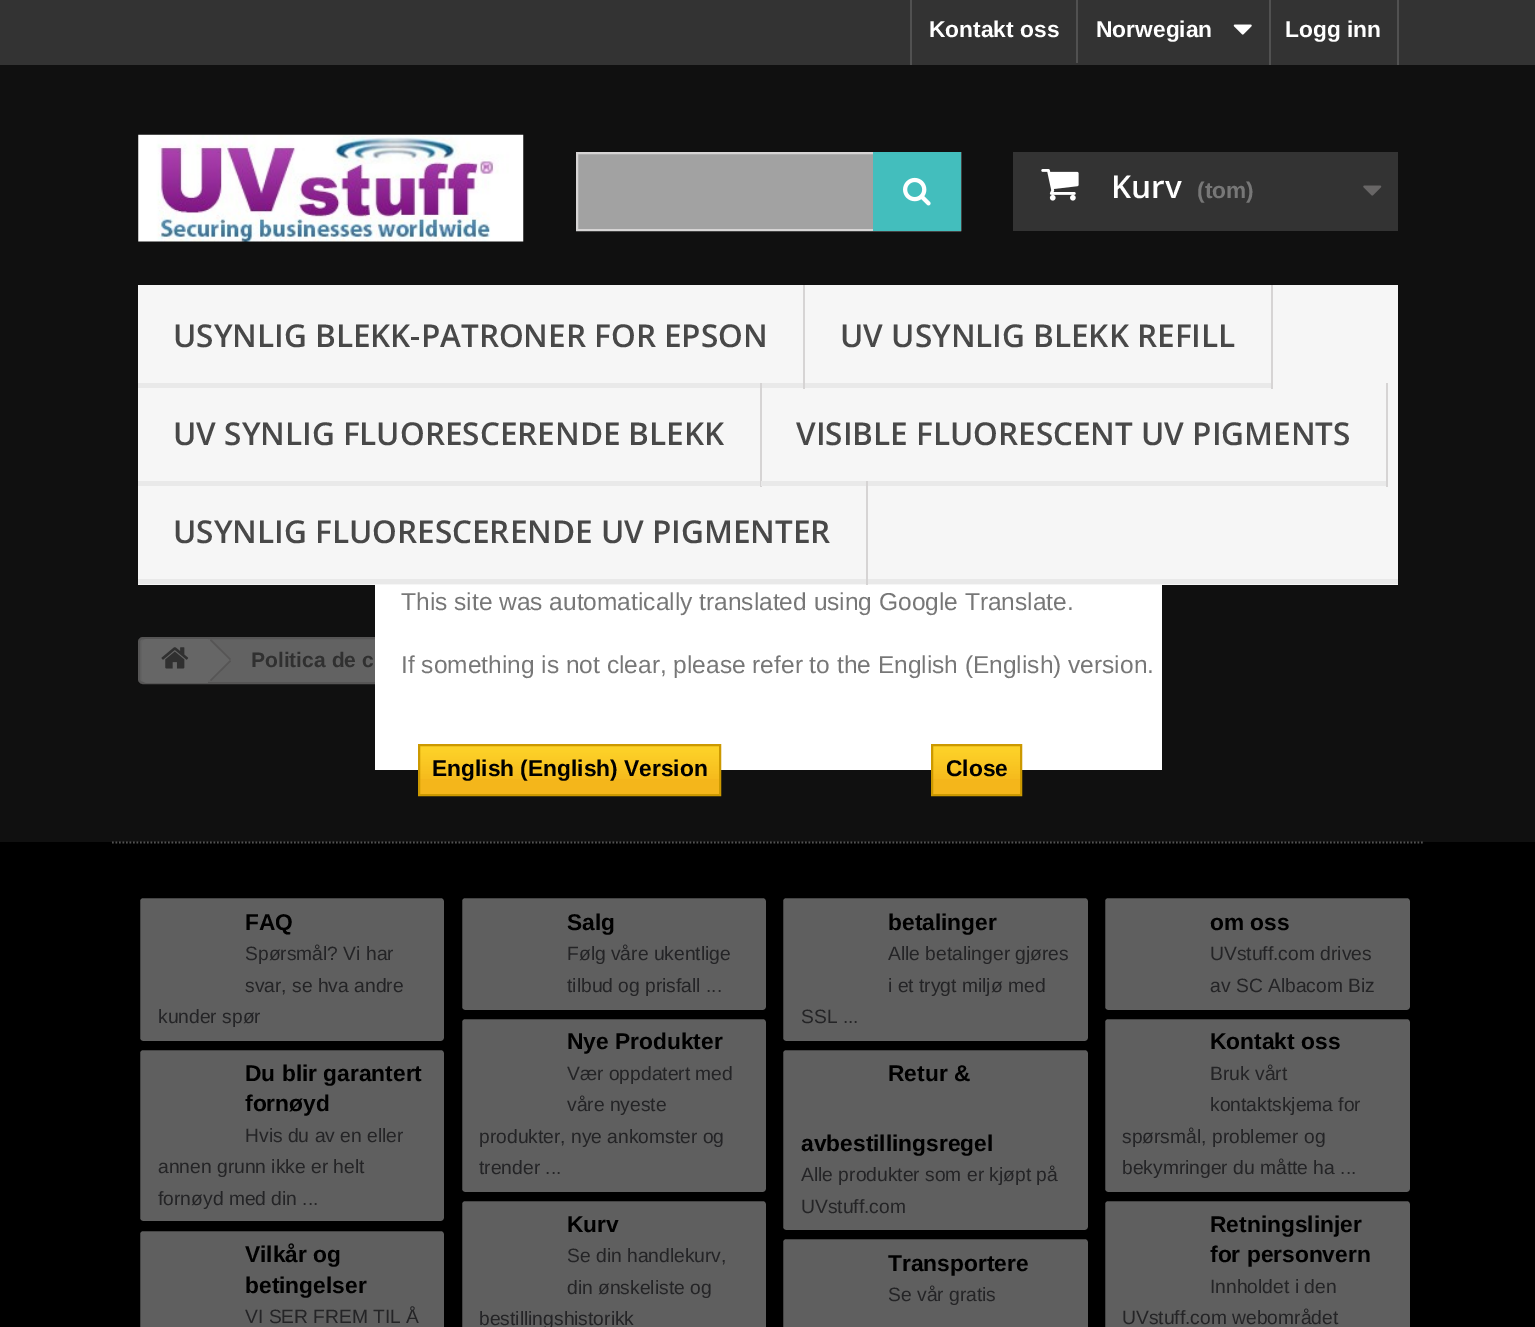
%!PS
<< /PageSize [1535 1327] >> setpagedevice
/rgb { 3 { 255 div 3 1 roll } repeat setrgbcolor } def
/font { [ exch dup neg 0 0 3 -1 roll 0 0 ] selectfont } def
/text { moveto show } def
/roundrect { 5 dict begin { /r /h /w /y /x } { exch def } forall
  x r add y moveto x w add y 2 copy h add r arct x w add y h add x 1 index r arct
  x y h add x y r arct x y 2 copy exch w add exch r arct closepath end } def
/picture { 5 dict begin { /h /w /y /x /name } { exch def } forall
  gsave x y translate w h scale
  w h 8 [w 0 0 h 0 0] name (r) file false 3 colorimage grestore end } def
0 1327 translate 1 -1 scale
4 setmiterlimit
16 16 16 rgb
0 0 1535 1327 rectfill
51 51 51 rgb
0 0 1535 65 rectfill
81 81 81 rgb
910 0 2 65 rectfill
1076 0 2 63 rectfill
(img_01.rgb) 1233 24 19 11 picture
1397 0 2 65 rectfill
1269 0 2 65 rectfill
(img_02.rgb) 138 134 386 108 picture
162 162 162 rgb
578 154 295 75 rectfill
214 212 212 rgb
2 setlinewidth
577 153 383 77 rectstroke
67 190 189 rgb
873 152 88 79 rectfill
(img_03.rgb) 903 177 28 29 picture
51 51 51 rgb
1013 152 385 79 rectfill
(img_04.rgb) 1041 169 38 32 picture
(img_05.rgb) 1363 185 19 11 picture
246 246 246 rgb
138 285 1260 300 rectfill
233 233 233 rgb
138 579 1260 5 rectfill
214 212 212 rgb
803 285 2 104 rectfill
233 233 233 rgb
138 383 665 5 rectfill
214 212 212 rgb
1271 285 2 104 rectfill
233 233 233 rgb
805 383 466 5 rectfill
214 212 212 rgb
760 383 2 104 rectfill
233 233 233 rgb
138 481 622 5 rectfill
214 212 212 rgb
1386 383 2 104 rectfill
233 233 233 rgb
761 481 625 5 rectfill
214 212 212 rgb
866 481 2 104 rectfill
98 98 98 rgb
139 638 404 45 4 roundrect gsave fill grestore
86 85 85 rgb
stroke
102 102 102 rgb
147 639 moveto 61 0 rlineto 0 44 rlineto -61 0 rlineto -3 0 -5 -2 -5 -5 rcurveto 0 -34 rlineto 0 -3 2 -5 5 -5 rcurveto closepath fill
(img_06.rgb) 161 647 28 22 picture
212 640 moveto 18 18 rlineto 1 1 1 3 0 5 rcurveto -18 17 rlineto -1 1 -3 1 -4 0 rcurveto -18 -17 rlineto -1 -2 -1 -4 0 -5 rcurveto 18 -18 rlineto 1 -1 3 -1 4 0 rcurveto closepath fill
86 85 85 rgb
211 639 moveto 20 20 rlineto -1 1 rlineto -20 -19.5 rlineto closepath 230 660 moveto 1 1.5 rlineto -20 19.5 rlineto -1 -1 rlineto closepath fill
0 0 0 rgb
0 842 1535 485 rectfill
82 82 82 rgb
1.8 setlinewidth
[1.75 1.75] 0 setdash
112 842.5 moveto 1312.5 0 rlineto stroke
95 95 95 rgb
139 897 306 145 4 roundrect gsave fill grestore
0 0 0 rgb
2 setlinewidth
[] 0 setdash
stroke
95 95 95 rgb
139 1049 306 173 4 roundrect gsave fill grestore
0 0 0 rgb
stroke
95 95 95 rgb
139 1230 306 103 4 roundrect gsave fill grestore
0 0 0 rgb
stroke
95 95 95 rgb
461 897 306 114 4 roundrect gsave fill grestore
0 0 0 rgb
stroke
95 95 95 rgb
461 1018 306 175 4 roundrect gsave fill grestore
0 0 0 rgb
stroke
95 95 95 rgb
461 1200 306 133 4 roundrect gsave fill grestore
0 0 0 rgb
stroke
95 95 95 rgb
782 897 307 145 4 roundrect gsave fill grestore
0 0 0 rgb
stroke
95 95 95 rgb
782 1049 307 182 4 roundrect gsave fill grestore
0 0 0 rgb
stroke
95 95 95 rgb
782 1238 307 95 4 roundrect gsave fill grestore
0 0 0 rgb
stroke
95 95 95 rgb
1104 897 307 114 4 roundrect gsave fill grestore
0 0 0 rgb
stroke
95 95 95 rgb
1104 1018 307 175 4 roundrect gsave fill grestore
0 0 0 rgb
stroke
95 95 95 rgb
1104 1200 307 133 4 roundrect gsave fill grestore
0 0 0 rgb
stroke
255 255 255 rgb
375 585 787 185 rectfill
244 182 27 rgb
420 779 299 15 rectfill
(img_07.rgb) 420 746 299 33 picture
204 153 0 rgb
419 745 301 50 rectstroke
244 182 27 rgb
933 779 87 15 rectfill
(img_08.rgb) 933 746 87 33 picture
204 153 0 rgb
932 745 89 50 rectstroke
/LiberationSans-Bold 22.75 font
255 255 255 rgb
(Kontakt oss) 929 37 text
(Norwegian) 1096 37 text
(Logg inn) 1285 37 text
/OpenSans-SemiBold 31.5 font
(Kurv) 1111 198 text
/LiberationSans-Bold 22.75 font
119 119 119 rgb
(\(tom\)) 1197 198 text
/OpenSans-SemiBold 31.5 font
72 72 72 rgb
(USYNLIG BLEKK-PATRONER FOR EPSON) 173 347 text
(UV USYNLIG BLEKK REFILL) 840 347 text
(UV SYNLIG FLUORESCERENDE BLEKK) 173 445 text
(VISIBLE FLUORESCENT UV PIGMENTS) 796 445 text
(USYNLIG FLUORESCERENDE UV PIGMENTER) 173 543 text
/LiberationSans-Bold 21 font
48 48 48 rgb
(Politica de c) 251 667 text
/LiberationSans-Bold 22.75 font
0 0 0 rgb
(FAQ) 245 930 text
/LiberationSans-Regular 19.25 font
36 36 38 rgb
(Spørsmål? Vi har) 245 960 text
(svar, se hva andre) 245 992 text
(kunder spør) 158 1023 text
/LiberationSans-Bold 22.75 font
0 0 0 rgb
(Du blir garantert) 245 1081 text
(fornøyd) 245 1111 text
/LiberationSans-Regular 19.25 font
36 36 38 rgb
(Hvis du av en eller) 245 1142 text
(annen grunn ikke er helt) 158 1173 text
(fornøyd med din ...) 158 1205 text
/LiberationSans-Bold 22.75 font
0 0 0 rgb
(Vilkår og) 245 1262 text
(betingelser) 245 1293 text
/LiberationSans-Regular 19.25 font
36 36 38 rgb
(VI SER FREM TIL Å) 245 1323 text
/LiberationSans-Bold 22.75 font
0 0 0 rgb
(Salg) 567 930 text
/LiberationSans-Regular 19.25 font
36 36 38 rgb
(Følg våre ukentlige) 567 960 text
(tilbud og prisfall ...) 567 992 text
/LiberationSans-Bold 22.75 font
0 0 0 rgb
(Nye Produkter) 567 1049 text
/LiberationSans-Regular 19.25 font
36 36 38 rgb
(Vær oppdatert med) 567 1080 text
(våre nyeste) 567 1111 text
(produkter, nye ankomster og) 479 1143 text
(trender ...) 479 1174 text
/LiberationSans-Bold 22.75 font
0 0 0 rgb
(Kurv) 567 1232 text
/LiberationSans-Regular 19.25 font
36 36 38 rgb
(Se din handlekurv,) 567 1262 text
(din ønskeliste og) 567 1294 text
(bestillingshistorikk) 479 1325 text
/LiberationSans-Bold 22.75 font
0 0 0 rgb
(betalinger) 888 930 text
/LiberationSans-Regular 19.25 font
36 36 38 rgb
(Alle betalinger gjøres) 888 960 text
(i et trygt miljø med) 888 992 text
(SSL ...) 801 1023 text
/LiberationSans-Bold 22.75 font
0 0 0 rgb
(Retur &) 888 1081 text
(avbestillingsregel) 801 1151 text
/LiberationSans-Regular 19.25 font
36 36 38 rgb
(Alle produkter som er kjøpt på) 801 1181 text
(UVstuff.com) 801 1213 text
/LiberationSans-Bold 22.75 font
0 0 0 rgb
(Transportere) 888 1271 text
/LiberationSans-Regular 19.25 font
36 36 38 rgb
(Se vår gratis) 888 1301 text
/LiberationSans-Bold 22.75 font
0 0 0 rgb
(om oss) 1210 930 text
/LiberationSans-Regular 19.25 font
36 36 38 rgb
(UVstuff.com drives) 1210 960 text
(av SC Albacom Biz) 1210 992 text
/LiberationSans-Bold 22.75 font
0 0 0 rgb
(Kontakt oss) 1210 1049 text
/LiberationSans-Regular 19.25 font
36 36 38 rgb
(Bruk vårt) 1210 1080 text
(kontaktskjema for) 1210 1111 text
(spørsmål, problemer og) 1122 1143 text
(bekymringer du måtte ha ...) 1122 1174 text
/LiberationSans-Bold 22.75 font
0 0 0 rgb
(Retningslinjer) 1210 1232 text
(for personvern) 1210 1262 text
/LiberationSans-Regular 19.25 font
36 36 38 rgb
(Innholdet i den) 1210 1293 text
(UVstuff.com webområdet) 1122 1324 text
/LiberationSans-Regular 24.5 font
119 119 119 rgb
(This site was automatically translated using Google Translate.) 401 610 text
(If something is not clear, please refer to the English \(English\) version.) 401 673 text
/LiberationSans-Bold 22.75 font
0 0 0 rgb
(English \(English\) Version) 432 776 text
(Close) 946 776 text
showpage
